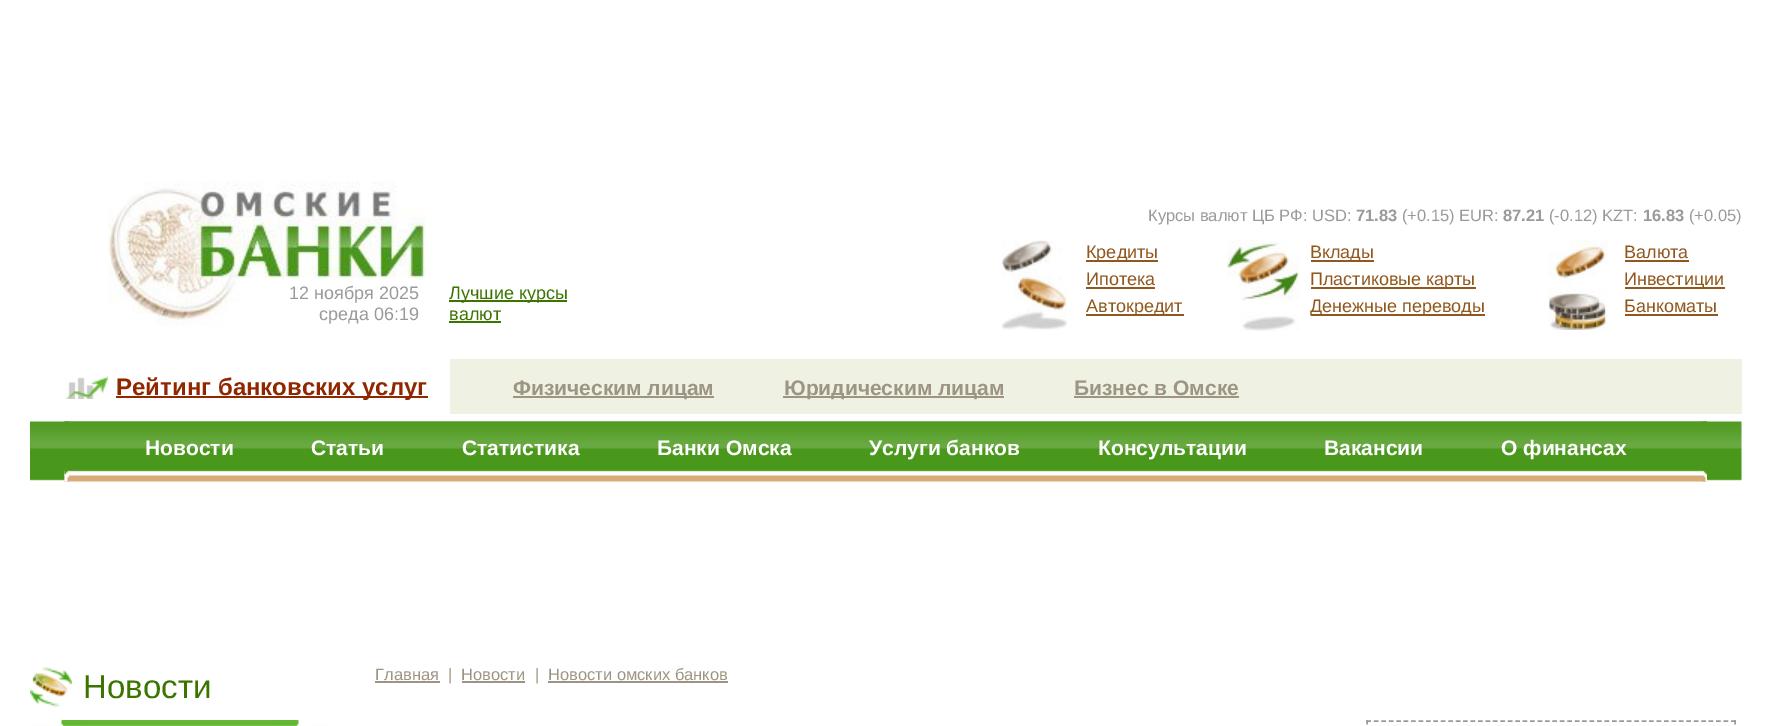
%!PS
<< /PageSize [1771 726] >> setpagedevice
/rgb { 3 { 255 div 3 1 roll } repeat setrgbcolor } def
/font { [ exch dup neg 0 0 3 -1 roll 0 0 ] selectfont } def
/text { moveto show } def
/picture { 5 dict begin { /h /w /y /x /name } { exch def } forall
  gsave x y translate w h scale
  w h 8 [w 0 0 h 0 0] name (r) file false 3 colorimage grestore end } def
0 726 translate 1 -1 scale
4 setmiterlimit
255 255 255 rgb
0 0 1771 726 rectfill
(img_01.rgb) 108 181 318 145 picture
60 116 0 rgb
449 300 118 2 rectfill
449 321 52 2 rectfill
(img_02.rgb) 1002 240 65 90 picture
144 87 30 rgb
1086 260 72 2 rectfill
1086 287 69 2 rectfill
1086 314 98 2 rectfill
(img_03.rgb) 1227 240 73 91 picture
1311 260 63 2 rectfill
1311 287 165 2 rectfill
1311 314 174 2 rectfill
(img_04.rgb) 1548 240 60 90 picture
1625 260 64 2 rectfill
1625 287 100 2 rectfill
1625 314 93 2 rectfill
(img_05.rgb) 65 376 43 23 picture
145 39 0 rgb
116 396 312 2 rectfill
239 242 227 rgb
450 359 1292 55 rectfill
157 148 131 rgb
513 396 201 2 rectfill
783 396 221 2 rectfill
1074 396 165 2 rectfill
(img_06.rgb) 30 421 1712 60 picture
(img_07.rgb) 64 421 1643 61 picture
(img_08.rgb) 64 421 5 61 picture
(img_09.rgb) 1702 421 5 61 picture
(img_10.rgb) 30 667 42 40 picture
(img_11.rgb) 30 720 300 6 picture
375 681 65 2 rectfill
462 681 63 2 rectfill
548 681 180 2 rectfill
153 153 153 rgb
1.5 setlinewidth
[4.5 2.94] 0 setdash
1366.5 721 moveto 369 0 rlineto stroke
1735 720 moveto 0 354 rlineto stroke
1367 720 moveto 0 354 rlineto stroke
/LiberationSans-Regular 18 font
154 154 154 rgb
(12 ноября 2025) 289 299 text
(среда 06:19) 319 320 text
60 116 0 rgb
(Лучшие курсы) 449 299 text
(валют) 449 320 text
/LiberationSans-Regular 16.5 font
154 154 154 rgb
(Курсы валют ЦБ РФ: USD:) 1148 221 text
/LiberationSans-Bold 16.5 font
(71.83) 1356 221 text
/LiberationSans-Regular 16.5 font
(\(+0.15\) EUR:) 1402 221 text
/LiberationSans-Bold 16.5 font
(87.21) 1503 221 text
/LiberationSans-Regular 16.5 font
(\(-0.12\) KZT:) 1549 221 text
/LiberationSans-Bold 16.5 font
(16.83) 1643 221 text
/LiberationSans-Regular 16.5 font
(\(+0.05\)) 1689 221 text
/LiberationSans-Regular 18 font
144 87 30 rgb
(Кредиты) 1086 258 text
(Ипотека) 1086 285 text
(Автокредит) 1086 312 text
(Вклады) 1310 258 text
(Пластиковые карты) 1310 285 text
(Денежные переводы) 1310 312 text
(Валюта) 1624 258 text
(Инвестиции) 1624 285 text
(Банкоматы) 1624 312 text
/LiberationSans-Bold 24 font
145 39 0 rgb
(Рейтинг банковских услуг) 116 395 text
/LiberationSans-Bold 21 font
157 148 131 rgb
(Физическим лицам) 513 395 text
(Юридическим лицам) 784 395 text
(Бизнес в Омске) 1074 395 text
255 255 255 rgb
(Новости) 145 455 text
(Статьи) 311 455 text
(Статистика) 462 455 text
(Банки Омска) 657 455 text
(Услуги банков) 869 455 text
(Консультации) 1098 455 text
(Вакансии) 1324 455 text
(О финансах) 1501 455 text
/LiberationSans-Regular 33 font
60 116 0 rgb
(Новости) 83 698 text
/LiberationSans-Regular 16.5 font
157 148 131 rgb
(Главная) 375 680 text
(|) 448 680 text
(Новости) 461 680 text
(|) 535 680 text
(Новости омских банков) 548 680 text
showpage
